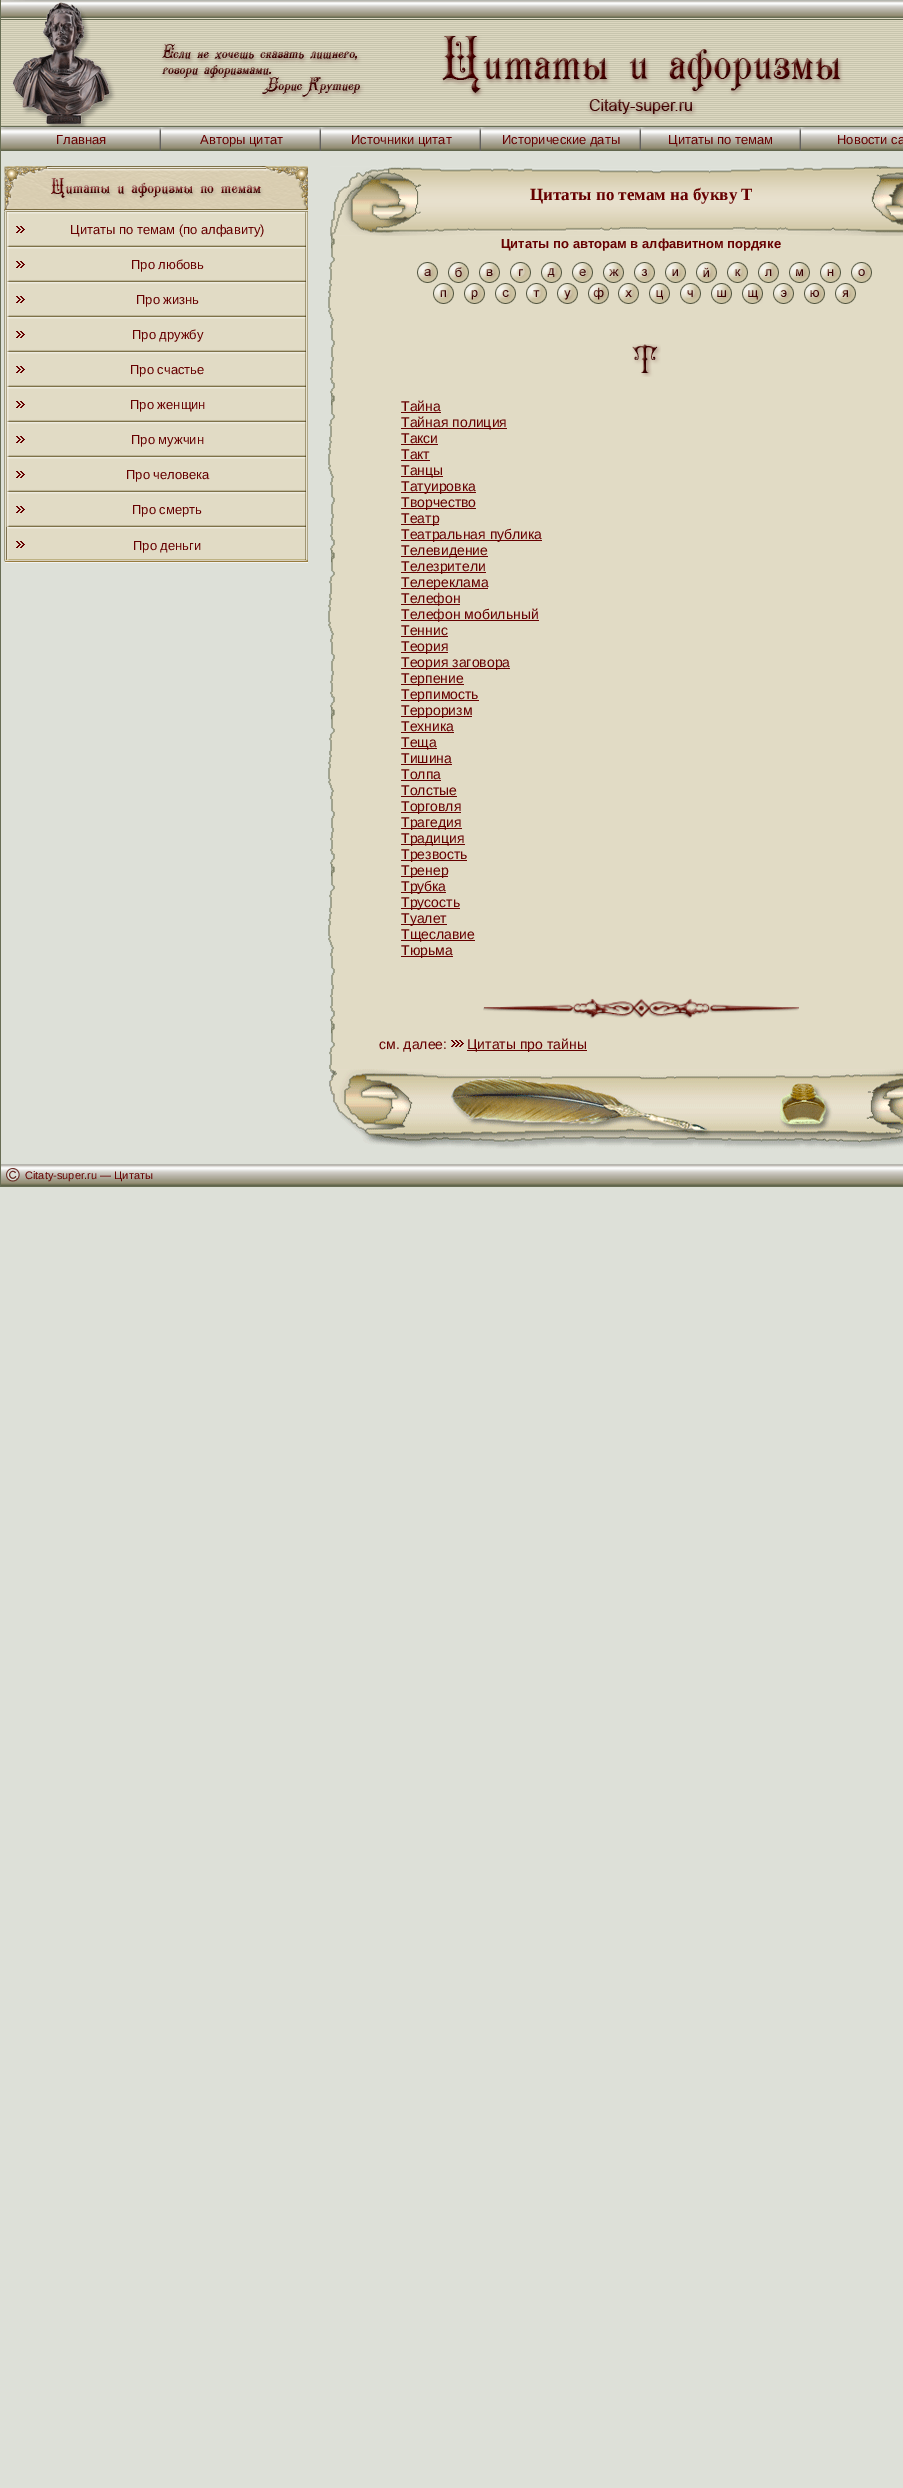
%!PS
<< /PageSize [903 2488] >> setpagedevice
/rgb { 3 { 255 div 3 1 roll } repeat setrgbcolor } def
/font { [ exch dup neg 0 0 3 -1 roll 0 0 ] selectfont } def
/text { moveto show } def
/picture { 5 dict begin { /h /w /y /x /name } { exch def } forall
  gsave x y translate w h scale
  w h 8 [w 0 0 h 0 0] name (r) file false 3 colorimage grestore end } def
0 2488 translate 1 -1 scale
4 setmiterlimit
221 224 216 rgb
0 0 903 2488 rectfill
104 109 84 rgb
0 1186 903 1 rectfill
0 0 1 1187 rectfill
(img_01.rgb) 1 0 334 40 picture
(img_02.rgb) 335 0 256 40 picture
(img_03.rgb) 591 0 100 40 picture
(img_04.rgb) 691 0 212 40 picture
(img_05.rgb) 1 40 334 47 picture
(img_06.rgb) 335 40 256 47 picture
(img_07.rgb) 591 40 100 47 picture
(img_08.rgb) 691 40 212 47 picture
(img_09.rgb) 1 87 334 40 picture
(img_10.rgb) 335 87 256 40 picture
(img_11.rgb) 591 87 100 40 picture
(img_12.rgb) 691 87 212 40 picture
(img_13.rgb) 1 127 160 24 picture
(img_13.rgb) 161 127 160 24 picture
(img_13.rgb) 321 127 160 24 picture
(img_13.rgb) 481 127 160 24 picture
(img_13.rgb) 641 127 160 24 picture
(img_14.rgb) 801 127 102 24 picture
(img_15.rgb) 4 166 304 46 picture
(img_16.rgb) 4 212 23 35 picture
(img_17.rgb) 27 212 281 35 picture
(img_16.rgb) 4 247 23 35 picture
(img_17.rgb) 27 247 281 35 picture
(img_16.rgb) 4 282 23 35 picture
(img_17.rgb) 27 282 281 35 picture
(img_16.rgb) 4 317 23 35 picture
(img_17.rgb) 27 317 281 35 picture
(img_16.rgb) 4 352 23 35 picture
(img_17.rgb) 27 352 281 35 picture
(img_16.rgb) 4 387 23 35 picture
(img_17.rgb) 27 387 281 35 picture
(img_16.rgb) 4 422 23 35 picture
(img_17.rgb) 27 422 281 35 picture
(img_16.rgb) 4 457 23 35 picture
(img_17.rgb) 27 457 281 35 picture
(img_16.rgb) 4 492 23 35 picture
(img_17.rgb) 27 492 281 35 picture
(img_18.rgb) 4 527 23 36 picture
(img_19.rgb) 27 527 281 36 picture
(img_20.rgb) 330 166 573 70 picture
(img_21.rgb) 328 236 575 833 picture
(img_22.rgb) 417 262 21 21 picture
(img_23.rgb) 448 262 21 21 picture
(img_24.rgb) 479 262 21 21 picture
(img_25.rgb) 510 262 21 21 picture
(img_26.rgb) 541 262 21 21 picture
(img_27.rgb) 572 262 21 21 picture
(img_28.rgb) 603 262 21 21 picture
(img_29.rgb) 634 262 21 21 picture
(img_30.rgb) 665 262 21 21 picture
(img_31.rgb) 696 262 21 21 picture
(img_32.rgb) 727 262 21 21 picture
(img_33.rgb) 758 262 21 21 picture
(img_34.rgb) 789 262 21 21 picture
(img_35.rgb) 820 262 21 21 picture
(img_36.rgb) 851 262 21 21 picture
(img_37.rgb) 433 283 21 21 picture
(img_38.rgb) 464 283 21 21 picture
(img_39.rgb) 495 283 21 21 picture
(img_40.rgb) 526 283 21 21 picture
(img_41.rgb) 557 283 21 21 picture
(img_42.rgb) 588 283 21 21 picture
(img_43.rgb) 618 283 21 21 picture
(img_44.rgb) 649 283 21 21 picture
(img_45.rgb) 680 283 21 21 picture
(img_46.rgb) 711 283 21 21 picture
(img_47.rgb) 742 283 21 21 picture
(img_48.rgb) 773 283 21 21 picture
(img_49.rgb) 804 283 21 21 picture
(img_50.rgb) 835 283 21 21 picture
(img_51.rgb) 632 344 29 33 picture
102 0 0 rgb
401 412 40 1 rectfill
401 428 106 1 rectfill
401 444 37 1 rectfill
401 460 29 1 rectfill
401 476 42 1 rectfill
401 492 75 1 rectfill
401 508 75 1 rectfill
401 524 38 1 rectfill
401 540 141 1 rectfill
401 556 87 1 rectfill
401 572 85 1 rectfill
401 588 87 1 rectfill
401 604 59 1 rectfill
401 620 138 1 rectfill
401 636 47 1 rectfill
401 652 47 1 rectfill
401 668 109 1 rectfill
401 684 63 1 rectfill
401 700 78 1 rectfill
401 716 71 1 rectfill
401 732 53 1 rectfill
401 748 36 1 rectfill
401 764 51 1 rectfill
401 780 40 1 rectfill
401 796 56 1 rectfill
401 812 60 1 rectfill
401 828 61 1 rectfill
401 844 64 1 rectfill
401 860 66 1 rectfill
401 876 47 1 rectfill
401 892 45 1 rectfill
401 908 59 1 rectfill
401 924 46 1 rectfill
401 940 74 1 rectfill
401 956 52 1 rectfill
(img_52.rgb) 483 998 316 21 picture
(img_53.rgb) 451 1040 13 7 picture
467 1050 120 1 rectfill
(img_54.rgb) 329 1069 574 80 picture
(img_55.rgb) 1 1164 902 22 picture
(img_56.rgb) 6 1168 14 14 picture
/LiberationSans-Regular 13 font
(Главная) 56 144 text
(Авторы цитат) 200 144 text
(Источники цитат) 351 144 text
(Исторические даты) 502 144 text
(Цитаты по темам) 668 144 text
(Новости са) 837 144 text
(Цитаты по темам \(по алфавиту\)) 70 234 text
(Про любовь) 131 269 text
(Про жизнь) 136 304 text
(Про дружбу) 132 339 text
(Про счастье) 130 374 text
(Про женщин) 130 409 text
(Про мужчин) 131 444 text
(Про человека) 126 479 text
(Про смерть) 132 514 text
(Про деньги) 133 550 text
/LiberationSerif-Bold 17 font
(Цитаты по темам на букву Т) 530 200 text
/LiberationSans-Bold 13 font
(Цитаты по авторам в алфавитном пордяке) 501 248 text
/LiberationSans-Regular 14 font
(Тайна) 401 411 text
(Тайная полиция) 401 427 text
(Такси) 401 443 text
(Такт) 401 459 text
(Танцы) 401 475 text
(Татуировка) 401 491 text
(Творчество) 401 507 text
(Театр) 401 523 text
(Театральная публика) 401 539 text
(Телевидение) 401 555 text
(Телезрители) 401 571 text
(Телереклама) 401 587 text
(Телефон) 401 603 text
(Телефон мобильный) 401 619 text
(Теннис) 401 635 text
(Теория) 401 651 text
(Теория заговора) 401 667 text
(Терпение) 401 683 text
(Терпимость) 401 699 text
(Терроризм) 401 715 text
(Техника) 401 731 text
(Теща) 401 747 text
(Тишина) 401 763 text
(Толпа) 401 779 text
(Толстые) 401 795 text
(Торговля) 401 811 text
(Трагедия) 401 827 text
(Традиция) 401 843 text
(Трезвость) 401 859 text
(Тренер) 401 875 text
(Трубка) 401 891 text
(Трусость) 401 907 text
(Туалет) 401 923 text
(Тщеславие) 401 939 text
(Тюрьма) 401 955 text
(см. далее:) 379 1049 text
(Цитаты про тайны) 467 1049 text
/LiberationSans-Regular 11 font
(Citaty-super.ru — Цитаты) 25 1179 text
showpage
